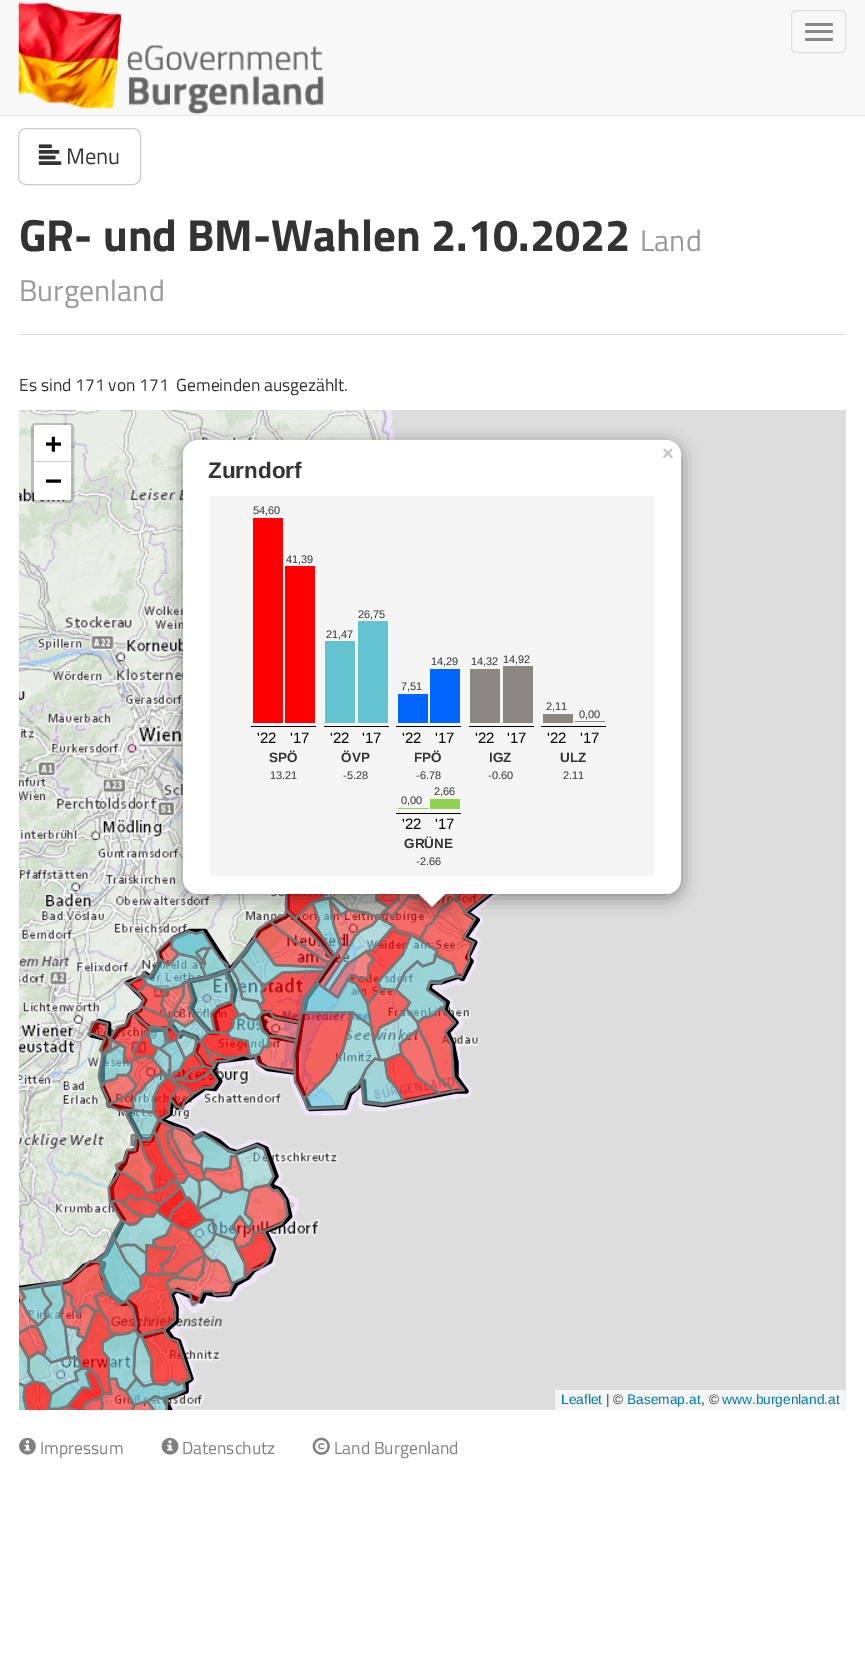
%!PS
<< /PageSize [865 1677] /PageUsesTransparency true >> setpagedevice
/rgb { 3 { 255 div 3 1 roll } repeat setrgbcolor } def
/font { [ exch dup neg 0 0 3 -1 roll 0 0 ] selectfont } def
/text { moveto show } def
/alpha { dup .setfillconstantalpha .setstrokeconstantalpha } def
/roundrect { 5 dict begin { /r /h /w /y /x } { exch def } forall
  x r add y moveto x w add y 2 copy h add r arct x w add y h add x 1 index r arct
  x y h add x y r arct x y 2 copy exch w add exch r arct closepath end } def
/shadow { 12 dict begin { /a /b /q /h /w /y /x } { exch def } forall gsave /was 0 def
  9 -2 -9 { dup b mul 4 div /e exch def 1 sub .425 mul 2.718 exch exp 1 add a .99 .min exch div /now exch def
    1 1 now sub 1 was sub div sub alpha /was now def
    w h .min e 2 mul add 0 gt { x e sub y e sub w e 2 mul add h e 2 mul add
      q e add b .6 mul add w h .min 2 div e add .min 0 .max roundrect fill } if } for grestore end } def
/picture { 5 dict begin { /h /w /y /x /name } { exch def } forall
  gsave x y translate w h scale
  w h 8 [w 0 0 h 0 0] name (r) file false 3 colorimage grestore end } def
0 .pushpdf14devicefilter
0 1677 translate 1 -1 scale
4 setmiterlimit
255 255 255 rgb
0 0 865 1677 rectfill
248 248 248 rgb
0 0 865 115 rectfill
231 231 231 rgb
0 115 865 1 rectfill
(img_01.rgb) 18 2 306 113 picture
221 221 221 rgb
791.5 10.5 54 42 4.5 roundrect stroke
136 136 136 rgb
805 23 28 3 1.5 roundrect fill
805 30 28 3 1.5 roundrect fill
805 38 28 3 1.5 roundrect fill
204 204 204 rgb
18.5 128.5 122 56 7.5 roundrect stroke
(img_02.rgb) 38 144 24 21 picture
221 221 221 rgb
19 334 827 1 rectfill
46 410 800 1000 rectfill
(img_03.rgb) 19 410 27 170 picture
(img_04.rgb) 46 410 320 170 picture
0.2 alpha
0 0 0 rgb
3 setlinewidth
32.5 424.5 40 77 3.5 roundrect stroke
1 alpha
255 255 255 rgb
36.5 425 moveto 32 0 rlineto 1.5 0 2.5 1 2.5 2.5 rcurveto 0 35.5 rlineto -37 0 rlineto 0 -35.5 rlineto 0 -1.5 1 -2.5 2.5 -2.5 rcurveto closepath fill
204 204 204 rgb
34 461 37 1 rectfill
255 255 255 rgb
34 463 moveto 37 0 rlineto 0 34.5 rlineto 0 1.5 -1 2.5 -2.5 2.5 rcurveto -32 0 rlineto -1.5 0 -2.5 -1 -2.5 -2.5 rcurveto closepath fill
245 245 245 rgb
555 1390 291 20 rectfill
(img_05.rgb) 366 410 29 30 picture
(img_06.rgb) 19 580 27 320 picture
(img_07.rgb) 46 580 321 320 picture
(img_08.rgb) 366 894 135 6 picture
(img_09.rgb) 19 900 27 320 picture
(img_10.rgb) 46 900 321 320 picture
(img_11.rgb) 366 900 124 212 picture
(img_12.rgb) 19 1220 27 190 picture
(img_13.rgb) 46 1220 274 190 picture
(img_14.rgb) 19 894 475 516 picture
0 0 0 rgb
183 444 498 454 15 9 0.4 shadow
255 255 255 rgb
183 440 498 454 15 roundrect fill
245 245 245 rgb
210 496 444 380 rectfill
0 0 0 rgb
251 726 65 1 rectfill
255 0 0 rgb
253 518 30 205 rectfill
285 566 30 157 rectfill
99 195 208 rgb
358 621 30 102 rectfill
0 0 0 rgb
324 726 65 1 rectfill
99 195 208 rgb
325 641 30 82 rectfill
0 102 255 rgb
430 669 30 54 rectfill
0 0 0 rgb
396 726 65 1 rectfill
0 102 255 rgb
398 694 30 29 rectfill
0 0 0 rgb
469 726 65 1 rectfill
139 136 132 rgb
470 669 30 54 rectfill
503 666 30 57 rectfill
0 0 0 rgb
541 726 65 1 rectfill
139 136 132 rgb
543 714 30 9 rectfill
575 721 30 1 rectfill
146 208 80 rgb
430 799 30 10 rectfill
0 0 0 rgb
396 813 65 1 rectfill
146 208 80 rgb
398 808 30 1 rectfill
gsave
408 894 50 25 rectclip
0 0 0 rgb
421 885 22 21 0 9 0.4 shadow
grestore
gsave
408 894 50 25 rectclip
255 255 255 rgb
432 877 moveto 15 15 rlineto -15 15 rlineto -15 -15 rlineto closepath fill
grestore
(img_15.rgb) 19 1437 17 18 picture
(img_16.rgb) 161 1437 18 18 picture
(img_17.rgb) 312 1437 18 18 picture
/TitilliumWeb-Regular 22.5 font
51 51 51 rgb
(Menu) 66 164 text
/TitilliumWeb-Bold 45 font
(GR- und BM-Wahlen 2.10.2022) 19 251 text
/TitilliumWeb-Regular 30 font
153 153 153 rgb
(Land) 640 251 text
(Burgenland) 19 301 text
/TitilliumWeb-Regular 17.5 font
51 51 51 rgb
(Es sind 171 von 171  Gemeinden ausgezählt.) 19 391 text
/DejaVuSansMono-Bold 28 font
0 0 0 rgb
(+) 45 453 text
(−) 45 490 text
/LiberationSans-Regular 13.75 font
0 120 168 rgb
(Leaflet) 561 1404 text
51 51 51 rgb
(| ©) 606 1404 text
0 120 168 rgb
(Basemap.at) 627 1404 text
51 51 51 rgb
(, ©) 701 1404 text
0 120 168 rgb
(www.burgenland.at) 722 1404 text
/LiberationSans-Bold 20 font
195 195 195 rgb
(×) 662 460 text
/LiberationSans-Bold 22.5 font
51 51 51 rgb
(Zurndorf) 208 478 text
/LiberationSans-Regular 11 font
(54,60) 253 514 text
(41,39) 286 563 text
/LiberationSans-Regular 15 font
0 0 0 rgb
('22) 257 743 text
('17) 290 743 text
/LiberationSans-Bold 13.5 font
51 51 51 rgb
(SPÖ) 269 762 text
/LiberationSans-Regular 11 font
(13.21) 270 779 text
(26,75) 358 618 text
(21,47) 326 638 text
/LiberationSans-Regular 15 font
0 0 0 rgb
('22) 330 743 text
('17) 362 743 text
/LiberationSans-Bold 13.5 font
51 51 51 rgb
(ÖVP) 341 762 text
/LiberationSans-Regular 11 font
(-5.28) 343 779 text
(14,29) 431 665 text
(7,51) 401 690 text
/LiberationSans-Regular 15 font
0 0 0 rgb
('22) 402 743 text
('17) 435 743 text
/LiberationSans-Bold 13.5 font
51 51 51 rgb
(FPÖ) 414 762 text
/LiberationSans-Regular 11 font
(-6.78) 416 779 text
(14,32) 471 665 text
(14,92) 503 663 text
/LiberationSans-Regular 15 font
0 0 0 rgb
('22) 475 743 text
('17) 507 743 text
/LiberationSans-Bold 13.5 font
51 51 51 rgb
(IGZ) 489 762 text
/LiberationSans-Regular 11 font
(-0.60) 488 779 text
(2,11) 546 710 text
(0,00) 579 718 text
/LiberationSans-Regular 15 font
0 0 0 rgb
('22) 547 743 text
('17) 580 743 text
/LiberationSans-Bold 13.5 font
51 51 51 rgb
(ULZ) 560 762 text
/LiberationSans-Regular 11 font
(2.11) 563 779 text
(2,66) 434 795 text
(0,00) 401 804 text
/LiberationSans-Regular 15 font
0 0 0 rgb
('22) 402 829 text
('17) 435 829 text
/LiberationSans-Bold 13.5 font
51 51 51 rgb
(GRÜNE) 404 848 text
/LiberationSans-Regular 11 font
(-2.66) 416 865 text
/TitilliumWeb-Regular 17.5 font
128 128 128 rgb
(Impressum) 40 1454 text
(Datenschutz) 182 1454 text
(Land Burgenland) 334 1454 text
.poppdf14devicefilter showpage
